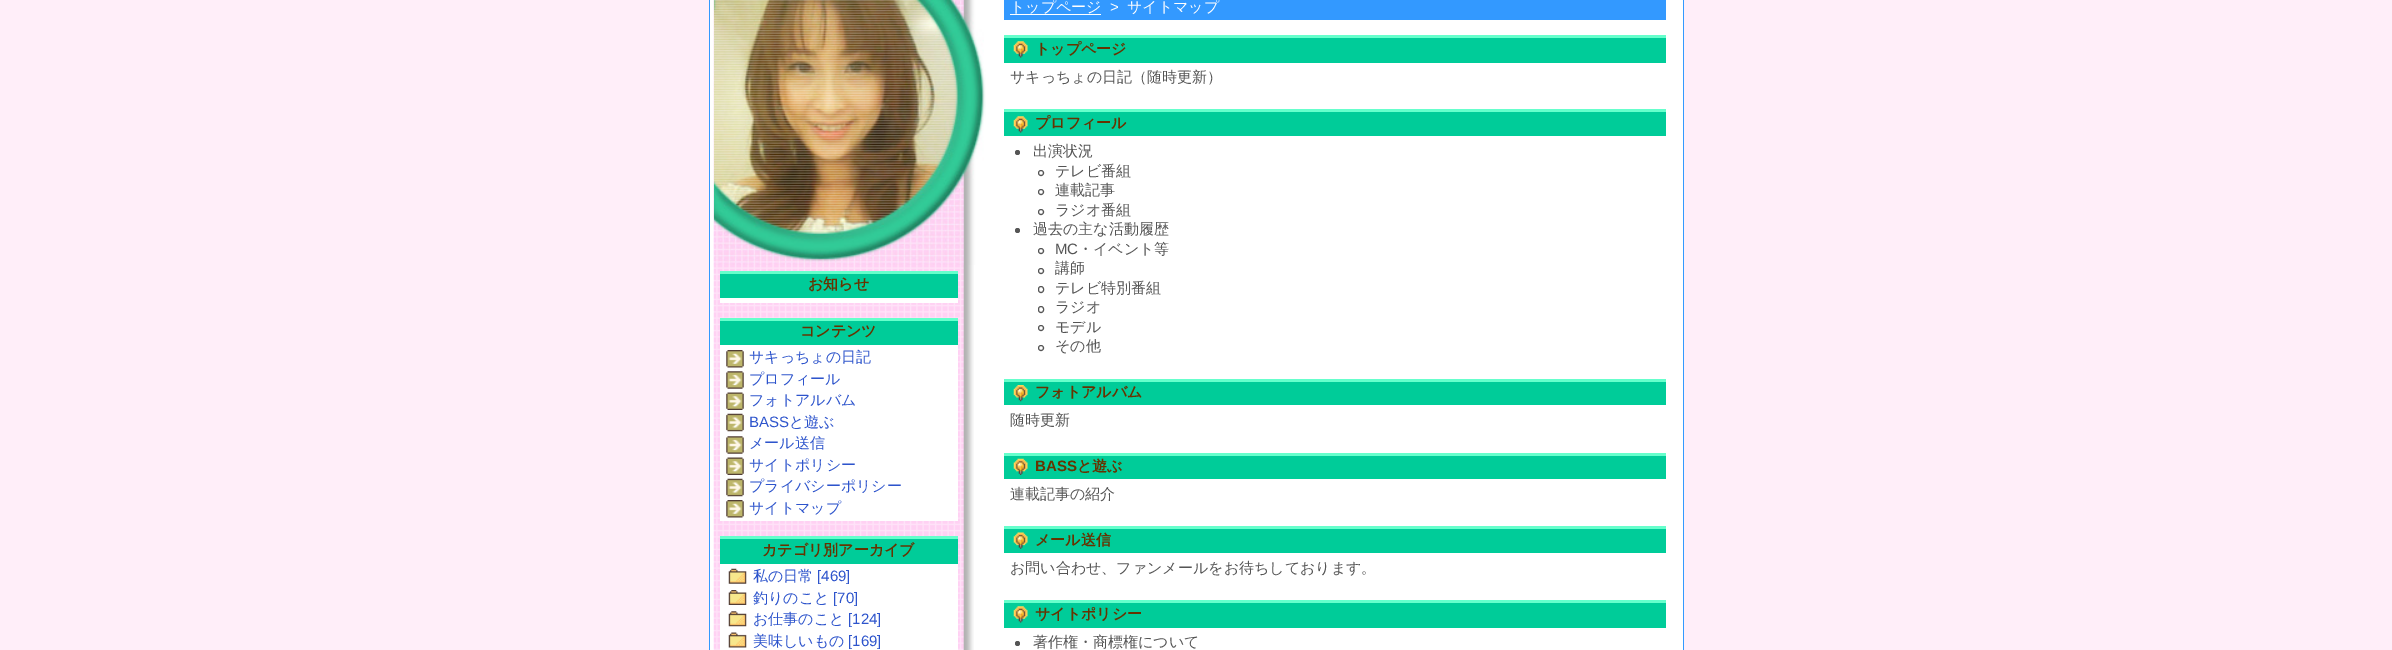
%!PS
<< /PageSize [2392 650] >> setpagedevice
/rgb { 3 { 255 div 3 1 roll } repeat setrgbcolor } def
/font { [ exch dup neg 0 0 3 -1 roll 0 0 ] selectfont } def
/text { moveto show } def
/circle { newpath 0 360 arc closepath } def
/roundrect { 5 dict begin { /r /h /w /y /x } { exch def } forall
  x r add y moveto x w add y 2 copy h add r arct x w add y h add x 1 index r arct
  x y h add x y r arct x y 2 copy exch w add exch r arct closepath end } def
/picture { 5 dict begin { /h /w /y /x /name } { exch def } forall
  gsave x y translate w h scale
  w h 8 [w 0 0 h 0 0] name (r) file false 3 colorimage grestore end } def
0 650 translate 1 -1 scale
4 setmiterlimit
255 238 249 rgb
0 0 2392 650 rectfill
255 255 255 rgb
710 0 973 650 rectfill
51 153 255 rgb
1683 0 1 650 rectfill
709 0 1 650 rectfill
(img_01.rgb) 713 0 261 650 picture
(img_02.rgb) 713 0 273 265 picture
0 204 153 rgb
720 274 238 24 rectfill
102 255 204 rgb
720 271 238 3 rectfill
255 255 255 rgb
720 298 238 5 rectfill
0 204 153 rgb
720 321 238 24 rectfill
102 255 204 rgb
720 318 238 3 rectfill
255 255 255 rgb
720 345 238 176 rectfill
(img_03.rgb) 726 350 18 18 picture
(img_04.rgb) 726 371 18 18 picture
(img_05.rgb) 726 392 18 18 picture
(img_06.rgb) 726 413 18 19 picture
(img_04.rgb) 726 436 18 18 picture
(img_07.rgb) 726 457 18 18 picture
(img_06.rgb) 726 478 18 19 picture
(img_03.rgb) 726 500 18 18 picture
0 204 153 rgb
720 539 238 25 rectfill
102 255 204 rgb
720 536 238 3 rectfill
255 255 255 rgb
720 564 238 86 rectfill
(img_08.rgb) 728 568 19 16 picture
(img_09.rgb) 728 590 19 15 picture
(img_10.rgb) 728 611 19 16 picture
(img_11.rgb) 728 632 19 16 picture
51 153 255 rgb
1004 0 662 20 rectfill
255 255 255 rgb
1010 14 91 1 rectfill
0 204 153 rgb
1004 38 662 25 rectfill
(img_12.rgb) 1013 41 15 17 picture
102 255 204 rgb
1004 35 662 3 rectfill
0 204 153 rgb
1004 112 662 24 rectfill
(img_12.rgb) 1013 116 15 17 picture
102 255 204 rgb
1004 109 662 3 rectfill
85 85 85 rgb
1017.5 152.5 2.5 circle fill
1041 173 2.5 circle stroke
1041 192 2.5 circle stroke
1041 212 2.5 circle stroke
1017.5 230.5 2.5 circle fill
1041 251 2.5 circle stroke
1041 271 2.5 circle stroke
1038.5 286.5 5 6 2.5 roundrect stroke
1038.5 306.5 5 6 2.5 roundrect stroke
1041 328 2.5 circle stroke
1041 348 2.5 circle stroke
0 204 153 rgb
1004 382 662 23 rectfill
(img_13.rgb) 1013 385 15 17 picture
102 255 204 rgb
1004 379 662 3 rectfill
0 204 153 rgb
1004 456 662 23 rectfill
(img_14.rgb) 1013 458 15 17 picture
102 255 204 rgb
1004 453 662 3 rectfill
0 204 153 rgb
1004 529 662 24 rectfill
(img_15.rgb) 1013 532 15 17 picture
102 255 204 rgb
1004 526 662 3 rectfill
0 204 153 rgb
1004 603 662 25 rectfill
(img_12.rgb) 1013 606 15 17 picture
102 255 204 rgb
1004 600 662 3 rectfill
85 85 85 rgb
1017.5 643.5 2.5 circle fill
/WenQuanYiZenHei-Bold 15 font
102 51 0 rgb
(お知らせ) 808 289 text
(コンテンツ) 800 336 text
/WenQuanYiZenHei-Medium 15 font
45 84 204 rgb
(サキっちょの日記) 749 362 text
(プロフィール) 749 384 text
(フォトアルバム) 749 405 text
/LiberationSans-Regular 15 font
(BASS) 749 427 text
/WenQuanYiZenHei-Medium 15 font
(と遊ぶ) 789 427 text
(メール送信) 749 448 text
(サイトポリシー) 749 470 text
(プライバシーポリシー) 749 491 text
(サイトマップ) 749 513 text
/WenQuanYiZenHei-Bold 15 font
102 51 0 rgb
(カテゴリ別アーカイブ) 762 555 text
/WenQuanYiZenHei-Medium 15 font
45 84 204 rgb
(私の日常) 753 581 text
/LiberationSans-Regular 15 font
([469]) 817 581 text
/WenQuanYiZenHei-Medium 15 font
(釣りのこと) 753 603 text
/LiberationSans-Regular 15 font
([70]) 833 603 text
/WenQuanYiZenHei-Medium 15 font
(お仕事のこと) 753 624 text
/LiberationSans-Regular 15 font
([124]) 848 624 text
/WenQuanYiZenHei-Medium 15 font
(美味しいもの) 753 646 text
/LiberationSans-Regular 15 font
([169]) 848 646 text
/WenQuanYiZenHei-Medium 15 font
255 255 255 rgb
(トップページ) 1010 12 text
/LiberationSans-Regular 15 font
(>) 1110 12 text
/WenQuanYiZenHei-Medium 15 font
(サイトマップ) 1127 12 text
/WenQuanYiZenHei-Bold 15 font
102 51 0 rgb
(トップページ) 1035 54 text
/WenQuanYiZenHei-Medium 15 font
85 85 85 rgb
(サキっちょの日記（随時更新）) 1010 82 text
/WenQuanYiZenHei-Bold 15 font
102 51 0 rgb
(プロフィール) 1035 128 text
/WenQuanYiZenHei-Medium 15 font
85 85 85 rgb
(出演状況) 1033 156 text
(テレビ番組) 1055 176 text
(連載記事) 1055 195 text
(ラジオ番組) 1055 215 text
(過去の主な活動履歴) 1033 234 text
/LiberationSans-Regular 15 font
(MC) 1055 254 text
/WenQuanYiZenHei-Medium 15 font
(・イベント等) 1078 254 text
(講師) 1055 273 text
(テレビ特別番組) 1055 293 text
(ラジオ) 1055 312 text
(モデル) 1055 332 text
(その他) 1055 351 text
/WenQuanYiZenHei-Bold 15 font
102 51 0 rgb
(フォトアルバム) 1035 397 text
/WenQuanYiZenHei-Medium 15 font
85 85 85 rgb
(随時更新) 1010 425 text
/LiberationSans-Bold 15 font
102 51 0 rgb
(BASS) 1035 471 text
/WenQuanYiZenHei-Bold 15 font
(と遊ぶ) 1077 471 text
/WenQuanYiZenHei-Medium 15 font
85 85 85 rgb
(連載記事の紹介) 1010 499 text
/WenQuanYiZenHei-Bold 15 font
102 51 0 rgb
(メール送信) 1035 545 text
/WenQuanYiZenHei-Medium 15 font
85 85 85 rgb
(お問い合わせ、ファンメールをお待ちしております。) 1010 573 text
/WenQuanYiZenHei-Bold 15 font
102 51 0 rgb
(サイトポリシー) 1035 619 text
/WenQuanYiZenHei-Medium 15 font
85 85 85 rgb
(著作権・商標権について) 1033 647 text
showpage
